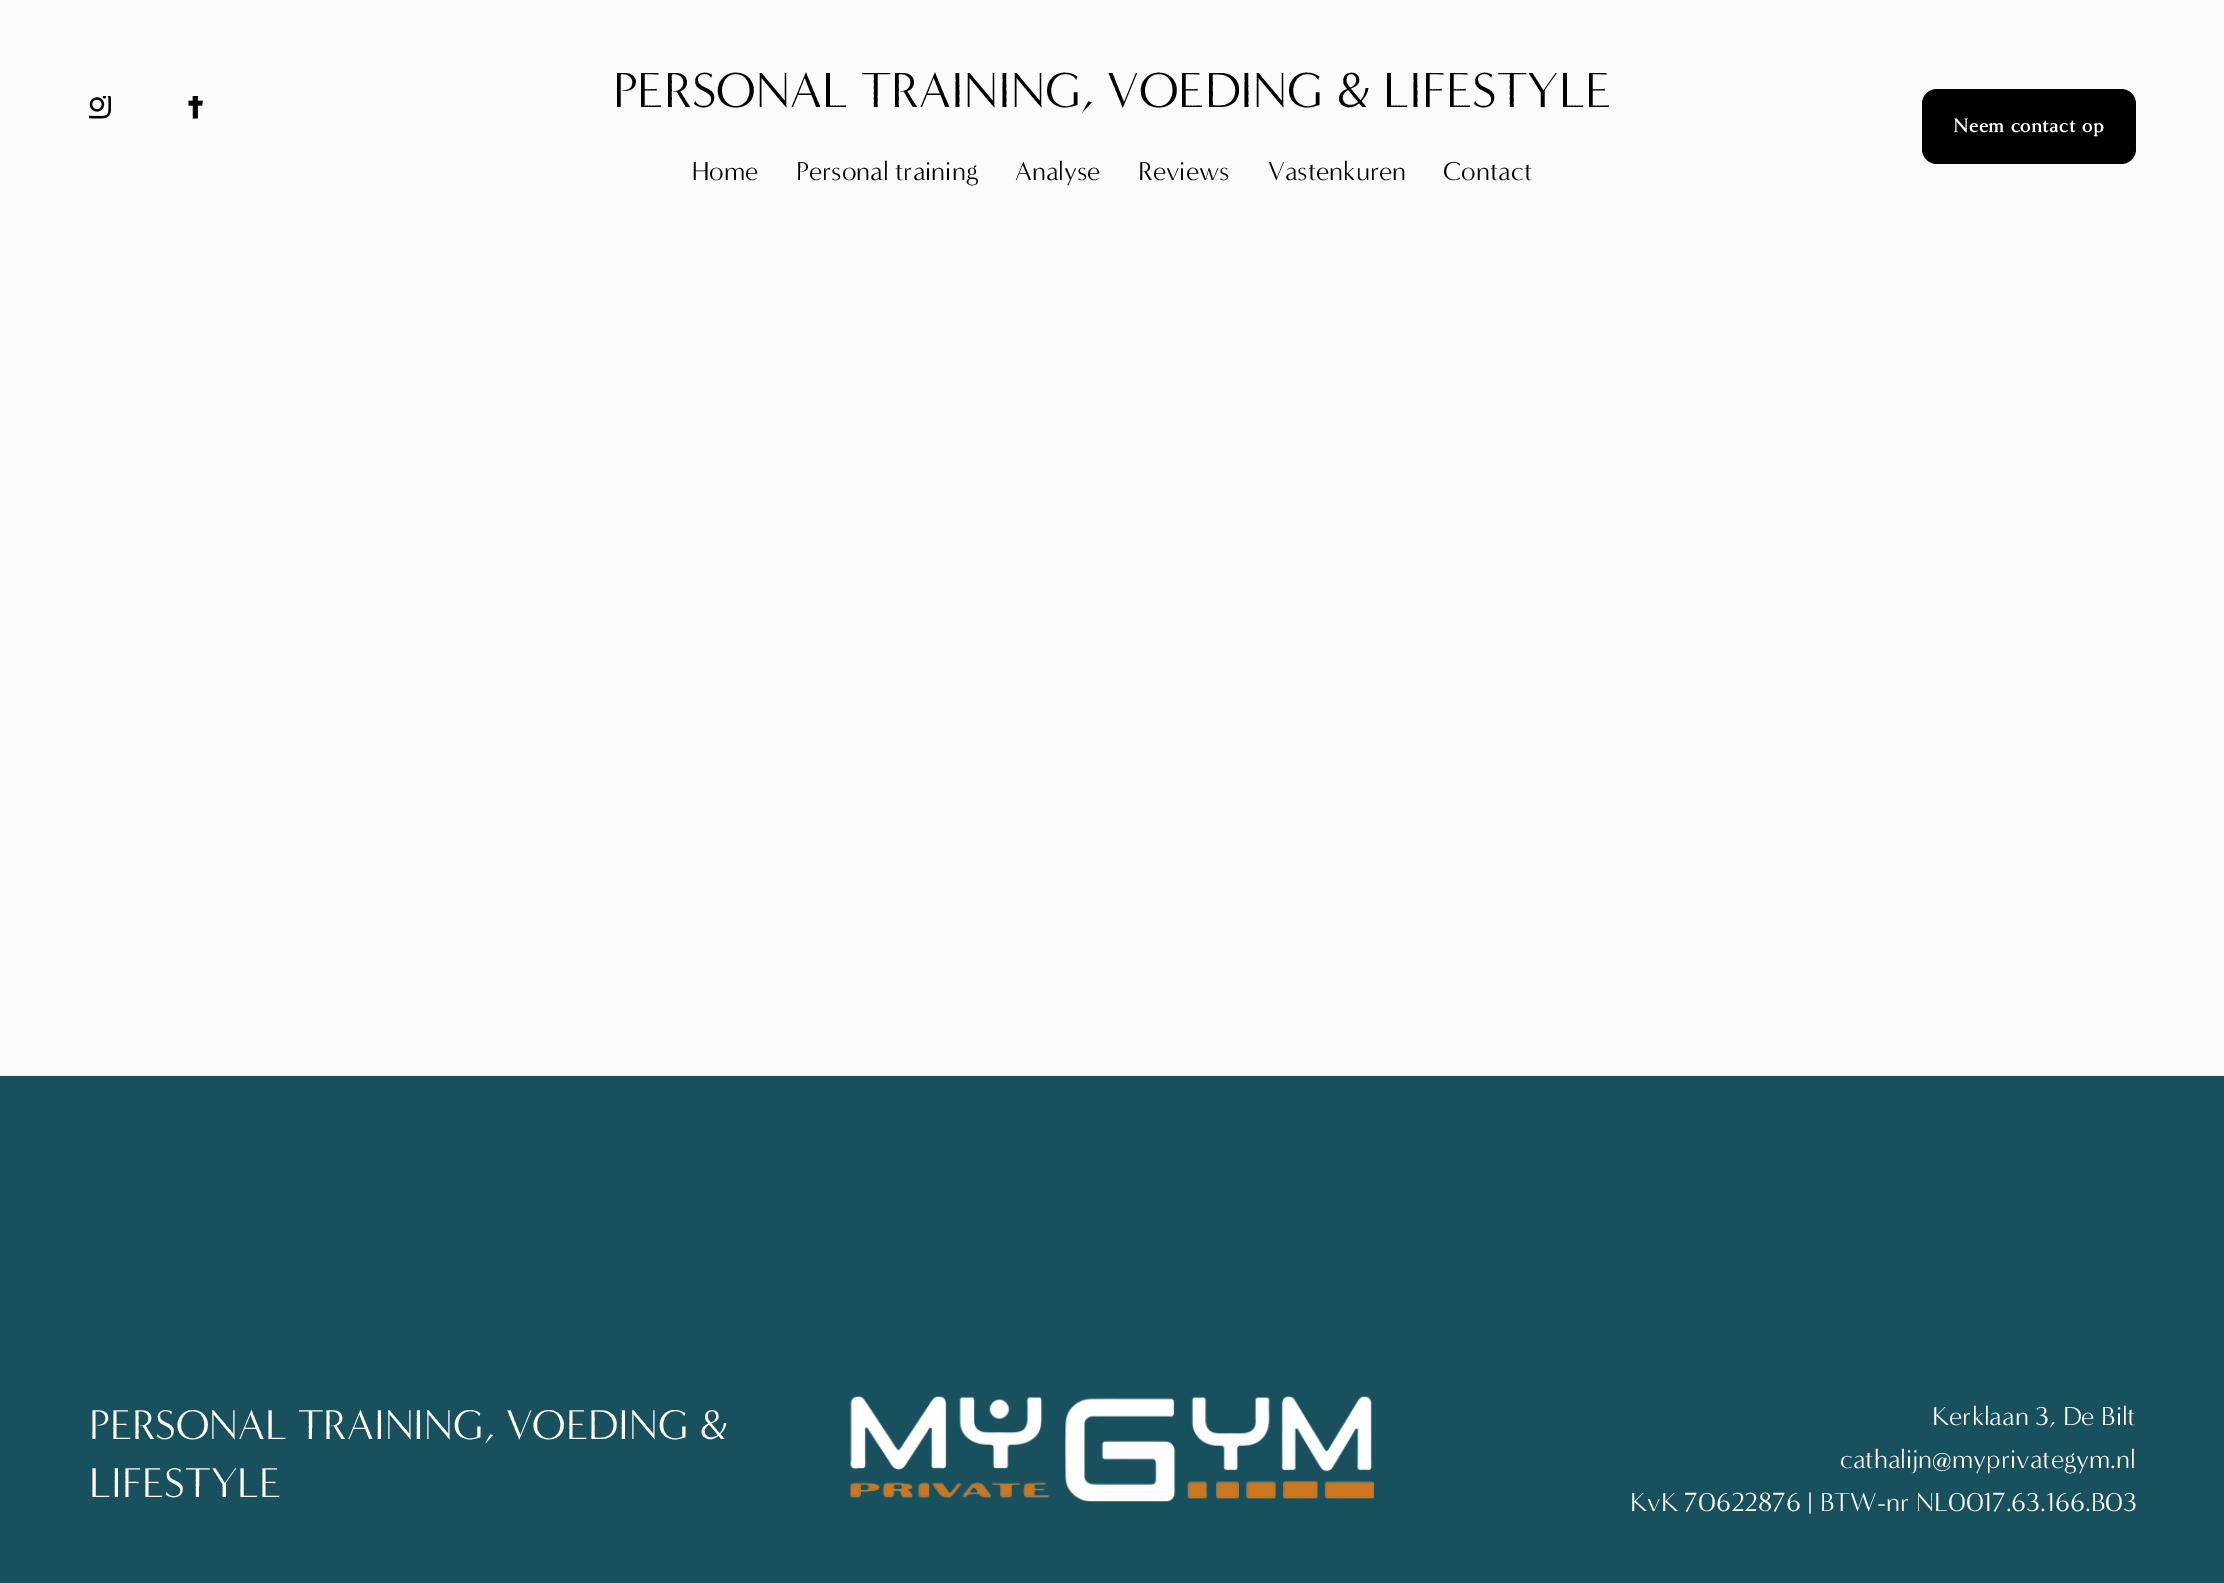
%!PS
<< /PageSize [2224 1583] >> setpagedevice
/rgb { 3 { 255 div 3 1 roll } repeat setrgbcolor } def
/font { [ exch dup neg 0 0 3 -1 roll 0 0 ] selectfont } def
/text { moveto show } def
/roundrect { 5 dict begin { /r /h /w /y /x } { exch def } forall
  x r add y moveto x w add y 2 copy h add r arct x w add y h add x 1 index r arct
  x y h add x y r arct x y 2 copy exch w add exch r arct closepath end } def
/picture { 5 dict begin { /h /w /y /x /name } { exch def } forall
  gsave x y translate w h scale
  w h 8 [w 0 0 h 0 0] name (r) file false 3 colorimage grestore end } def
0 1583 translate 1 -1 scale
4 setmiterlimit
252 251 251 rgb
0 0 2224 1583 rectfill
(img_01.rgb) 89 96 22 23 picture
(img_02.rgb) 188 96 15 23 picture
0 0 0 rgb
1922 89 214 75 15 roundrect fill
24 80 93 rgb
0 1076 2224 507 rectfill
(img_03.rgb) 850 1396 524 106 picture
/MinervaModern-Regular 50.7 font
0 0 0 rgb
(PERSONAL TRAINING, VOEDING & LIFESTYLE) 613 107 text
/MinervaModern-Regular 26.7 font
(Home) 692 180 text
(Personal training) 796 180 text
(Analyse) 1015 180 text
(Reviews) 1138 180 text
(Vastenkuren) 1268 180 text
(Contact) 1443 180 text
/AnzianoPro-Bold 21.25 font
255 255 255 rgb
(Neem contact op) 1953 132 text
/MinervaModern-Regular 42.75 font
(PERSONAL TRAINING, VOEDING &) 89 1439 text
(LIFESTYLE) 89 1497 text
/MinervaModern-Regular 26.7 font
(Kerklaan 3, De Bilt) 1932 1425 text
(cathalijn@myprivategym.nl) 1840 1468 text
(KvK 70622876 | BTW-nr NL0017.63.166.B03) 1630 1511 text
showpage
